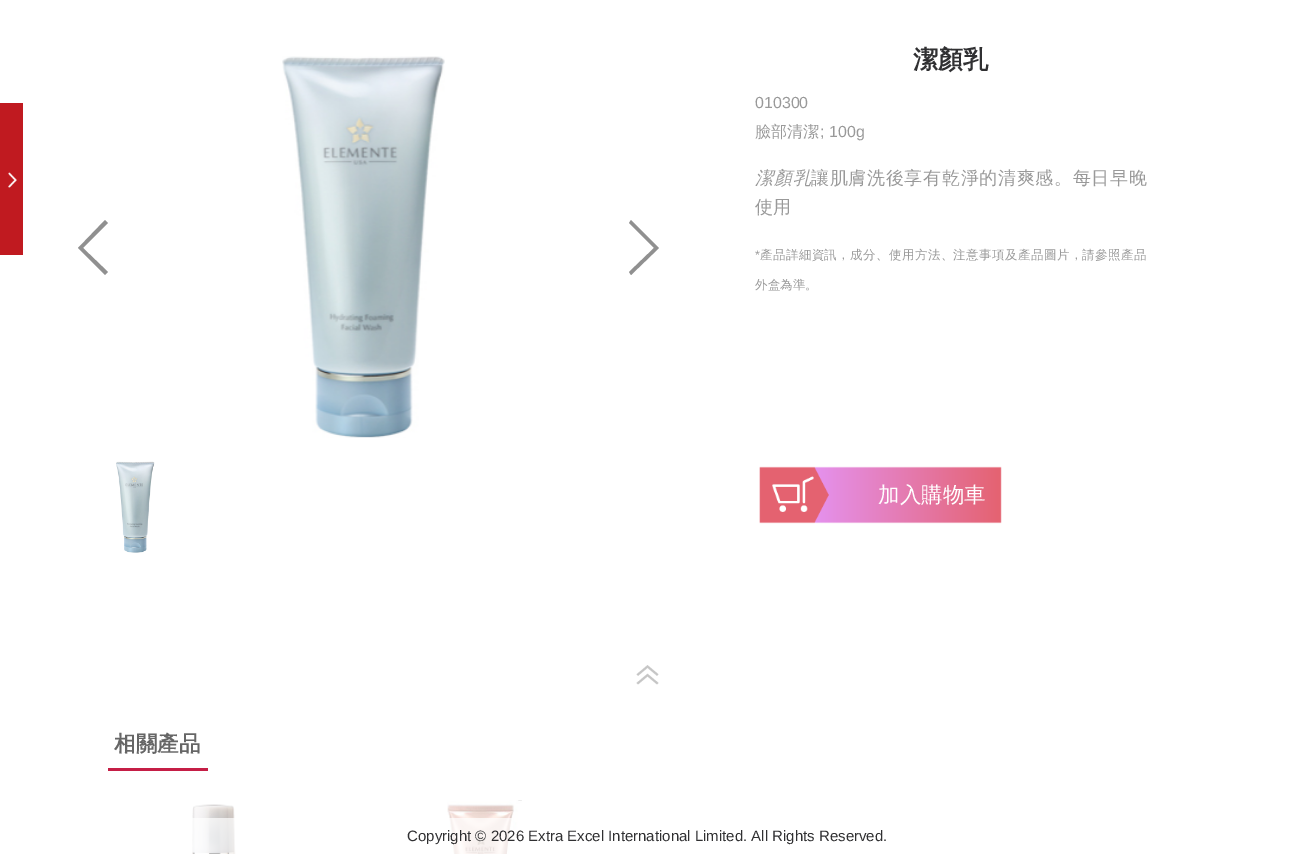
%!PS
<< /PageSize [1294 854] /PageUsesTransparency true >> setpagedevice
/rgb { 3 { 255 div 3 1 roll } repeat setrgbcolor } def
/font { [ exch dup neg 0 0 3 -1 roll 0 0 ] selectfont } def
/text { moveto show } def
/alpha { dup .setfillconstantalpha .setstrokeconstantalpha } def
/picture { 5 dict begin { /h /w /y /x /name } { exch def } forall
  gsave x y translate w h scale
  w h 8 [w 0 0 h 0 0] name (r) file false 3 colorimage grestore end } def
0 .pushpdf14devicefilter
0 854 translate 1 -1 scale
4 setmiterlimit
255 255 255 rgb
0 0 1294 854 rectfill
192 26 32 rgb
0 103 23 152 rectfill
(img_01.rgb) 8 172 9 16 picture
144 144 144 rgb
78 248 moveto 27 -28 rlineto 3 3 rlineto -25 25 rlineto 25 24 rlineto -3 3 rlineto closepath fill
(img_02.rgb) 282 56 163 382 picture
659 248 moveto -28 27 rlineto -2 -3 rlineto 25 -24 rlineto -25 -25 rlineto 2 -3 rlineto closepath fill
(img_03.rgb) 116 461 39 92 picture
(img_04.rgb) 759 466 243 58 picture
(img_05.rgb) 636 665 23 20 picture
197 30 70 rgb
108 768 100 3 rectfill
(img_06.rgb) 192 804 44 50 picture
(img_07.rgb) 447 800 75 54 picture
0.7 alpha
255 255 255 rgb
192 818 321 36 rectfill
/WenQuanYiZenHei-Bold 25 font
1 alpha
48 48 50 rgb
(潔顏乳) 913 68 text
/LiberationSans-Regular 16 font
153 153 153 rgb
(010300) 755 108 text
/WenQuanYiZenHei-Medium 16 font
(臉部清潔) 755 137 text
/LiberationSans-Regular 16 font
(; 100g) 820 137 text
/WenQuanYiZenHei-MediumItalic 18 font
755 184 moveto 1 0 (潔顏乳) ashow
/WenQuanYiZenHei-Medium 18 font
811 184 moveto 0.7 0 (讓肌膚洗後享有乾淨的清爽感。每日早晚) ashow
(使用) 755 213 text
/LiberationSans-Regular 12.5 font
755 259 moveto 0.4 0 (*) ashow
/WenQuanYiZenHei-Medium 12.5 font
760 259 moveto 0.4 0 (產品詳細資訊，成分、使用方法、注意事項及產品圖片，請參照產品) ashow
(外盒為準。) 755 289 text
/WenQuanYiZenHei-Medium 21.5 font
255 255 255 rgb
(加入購物車) 878 502 text
/WenQuanYiZenHei-Bold 21.5 font
102 102 102 rgb
(相關產品) 114 751 text
/LiberationSans-Regular 15 font
48 48 50 rgb
(Copyright © 2026 Extra Excel International Limited. All Rights Reserved.) 407 841 text
.poppdf14devicefilter showpage
